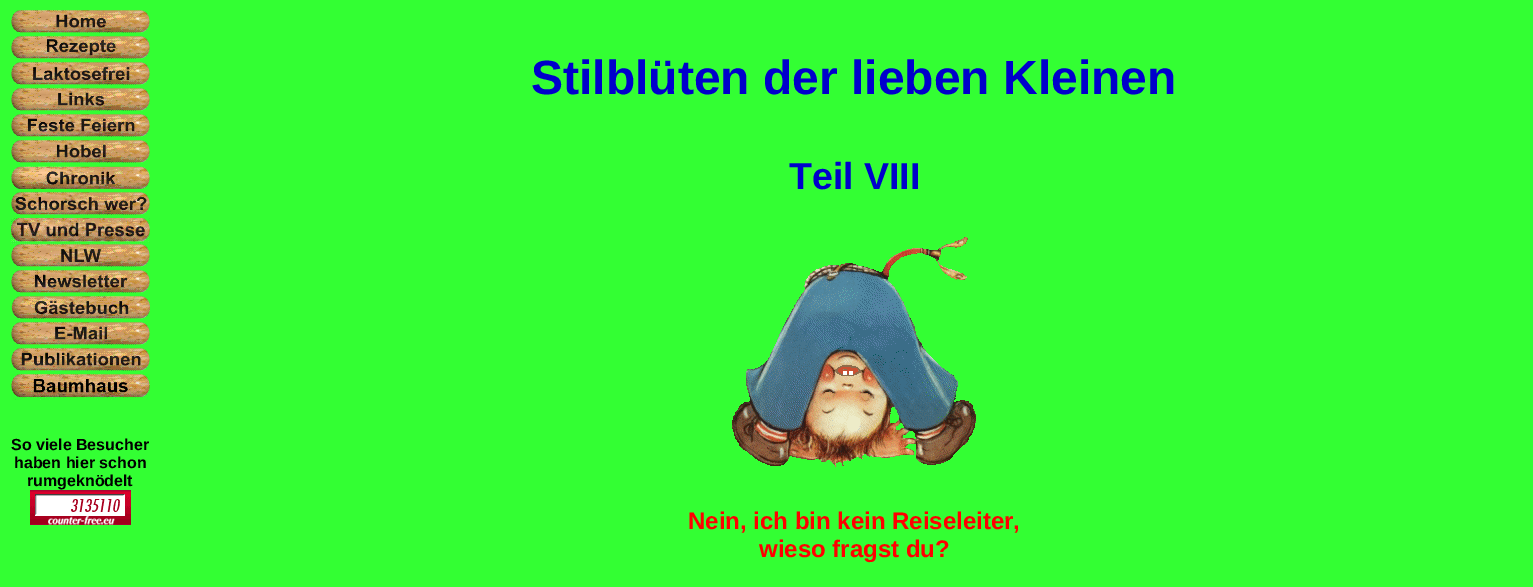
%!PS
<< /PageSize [1533 587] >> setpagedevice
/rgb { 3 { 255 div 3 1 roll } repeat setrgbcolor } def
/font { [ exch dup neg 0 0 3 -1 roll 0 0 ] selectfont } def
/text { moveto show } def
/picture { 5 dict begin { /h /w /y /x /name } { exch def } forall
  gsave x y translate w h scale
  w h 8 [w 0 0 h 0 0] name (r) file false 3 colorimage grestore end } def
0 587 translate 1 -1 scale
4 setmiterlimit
51 255 51 rgb
0 0 1533 587 rectfill
(img_01.rgb) 11 10 139 23 picture
(img_02.rgb) 11 36 139 23 picture
(img_03.rgb) 11 62 139 23 picture
(img_04.rgb) 11 88 139 23 picture
(img_05.rgb) 11 114 139 23 picture
(img_06.rgb) 11 140 139 23 picture
(img_07.rgb) 11 166 139 23 picture
(img_08.rgb) 11 192 139 23 picture
(img_09.rgb) 11 218 139 26 picture
(img_10.rgb) 11 244 139 23 picture
(img_11.rgb) 11 270 139 23 picture
(img_12.rgb) 11 296 139 23 picture
(img_13.rgb) 11 322 139 23 picture
(img_14.rgb) 11 348 139 23 picture
(img_15.rgb) 11 374 139 26 picture
(img_16.rgb) 30 490 101 35 picture
(img_17.rgb) 732 237 244 230 picture
/LiberationSans-Bold 16 font
0 0 0 rgb
(So viele Besucher) 11 450 text
(haben hier schon) 14 468 text
(rumgeknödelt) 27 486 text
/LiberationSans-Bold 48 font
0 0 204 rgb
(Stilblüten der lieben Kleinen) 531 94 text
/LiberationSans-Bold 37.5 font
(Teil VIII) 789 189 text
/LiberationSans-Bold 24 font
255 0 0 rgb
(Nein, ich bin kein Reiseleiter,) 688 529 text
(wieso fragst du?) 759 557 text
showpage
